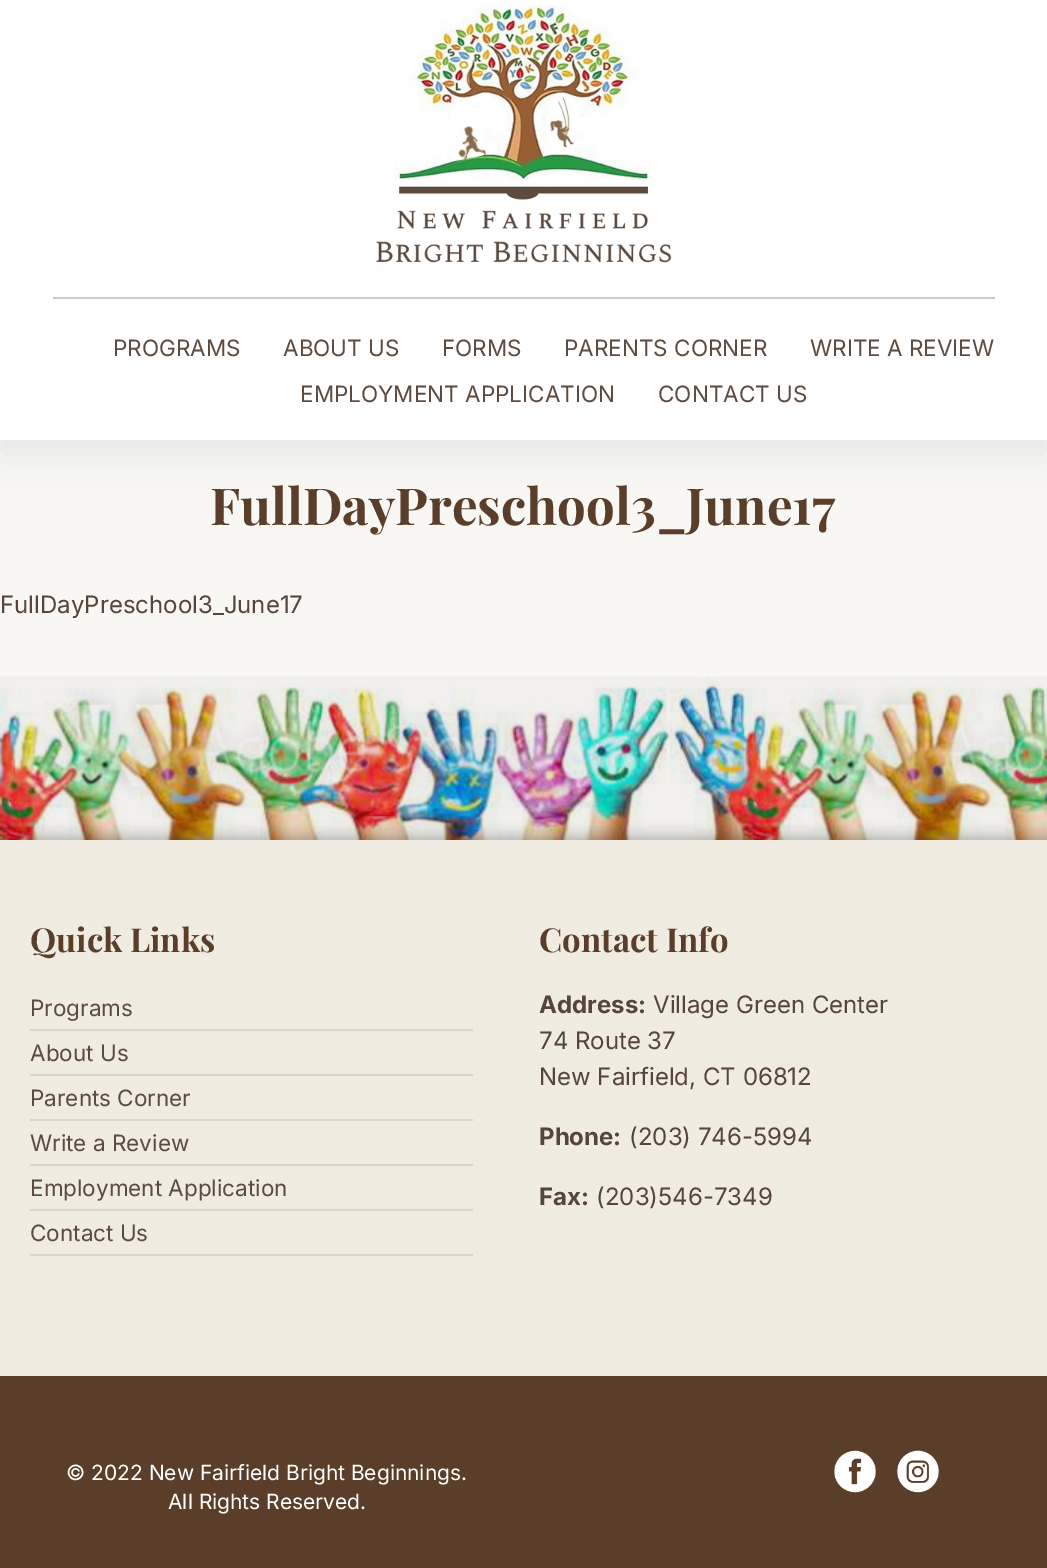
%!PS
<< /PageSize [1047 1568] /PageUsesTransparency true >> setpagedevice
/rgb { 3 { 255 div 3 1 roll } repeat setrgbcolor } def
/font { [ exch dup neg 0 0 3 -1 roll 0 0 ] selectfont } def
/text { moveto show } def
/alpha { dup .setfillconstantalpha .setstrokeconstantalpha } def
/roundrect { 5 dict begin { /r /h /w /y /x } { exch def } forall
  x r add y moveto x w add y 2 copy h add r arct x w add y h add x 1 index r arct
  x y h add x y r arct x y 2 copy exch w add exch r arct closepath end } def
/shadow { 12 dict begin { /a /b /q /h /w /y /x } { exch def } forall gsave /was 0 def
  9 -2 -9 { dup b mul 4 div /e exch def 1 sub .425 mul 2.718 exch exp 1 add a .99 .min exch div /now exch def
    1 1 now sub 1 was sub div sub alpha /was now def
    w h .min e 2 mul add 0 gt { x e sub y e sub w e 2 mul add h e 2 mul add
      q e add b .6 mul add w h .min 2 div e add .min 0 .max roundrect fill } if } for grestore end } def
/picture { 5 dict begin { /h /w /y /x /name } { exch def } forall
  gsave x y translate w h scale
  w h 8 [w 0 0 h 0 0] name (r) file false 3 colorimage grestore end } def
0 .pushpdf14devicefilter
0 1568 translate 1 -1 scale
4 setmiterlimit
248 247 244 rgb
0 0 1047 1568 rectfill
149 157 165 rgb
0 12 1047 440 0 18 0.2 shadow
255 255 255 rgb
0 0 1047 440 rectfill
(img_01.rgb) 375 5 297 258 picture
204 204 204 rgb
53 297 942 2 rectfill
241 236 226 rgb
0 840 1047 536 rectfill
(img_02.rgb) 0 676 1047 164 picture
223 213 196 rgb
30 1029 443 2 rectfill
30 1074 443 2 rectfill
30 1119 443 2 rectfill
30 1164 443 2 rectfill
30 1209 443 2 rectfill
30 1254 443 2 rectfill
90 62 41 rgb
0 1376 1047 192 rectfill
(img_03.rgb) 834 1450 42 43 picture
(img_04.rgb) 897 1450 42 43 picture
/Inter-Regular 22.5 font
93 75 64 rgb
(PROGRAMS) 113 356 text
(ABOUT US) 283 356 text
(FORMS) 442 356 text
(PARENTS CORNER) 564 356 text
(WRITE A REVIEW) 810 356 text
(EMPLOYMENT APPLICATION) 300 402 text
(CONTACT US) 658 402 text
/PlayfairDisplay-Bold 51 font
90 62 41 rgb
(FullDayPreschool3_June17) 210 525 text
/Inter-Regular 24 font
88 69 58 rgb
(FullDayPreschool3_June17) 0 613 text
/PlayfairDisplay-Bold 33 font
90 62 41 rgb
(Quick Links) 30 952 text
/Inter-Regular 22.5 font
93 75 64 rgb
(Programs) 30 1016 text
(About Us) 30 1061 text
(Parents Corner) 30 1106 text
(Write a Review) 30 1151 text
(Employment Application) 30 1196 text
(Contact Us) 30 1241 text
/PlayfairDisplay-Bold 33 font
90 62 41 rgb
(Contact Info) 539 952 text
/Inter-Bold 24 font
88 69 58 rgb
(Address:) 539 1013 text
/Inter-Regular 24 font
(Village Green Center) 653 1013 text
(74 Route 37) 539 1049 text
(New Fairfield, CT 06812) 539 1085 text
/Inter-Bold 24 font
(Phone:) 539 1145 text
/Inter-Regular 24 font
(\(203\) 746-5994) 629 1145 text
/Inter-Bold 24 font
(Fax:) 539 1205 text
/Inter-Regular 24 font
(\(203\)546-7349) 596 1205 text
/Inter-Regular 21 font
255 255 255 rgb
(© 2022 New Fairfield Bright Beginnings.) 66 1480 text
(All Rights Reserved.) 168 1509 text
.poppdf14devicefilter showpage
